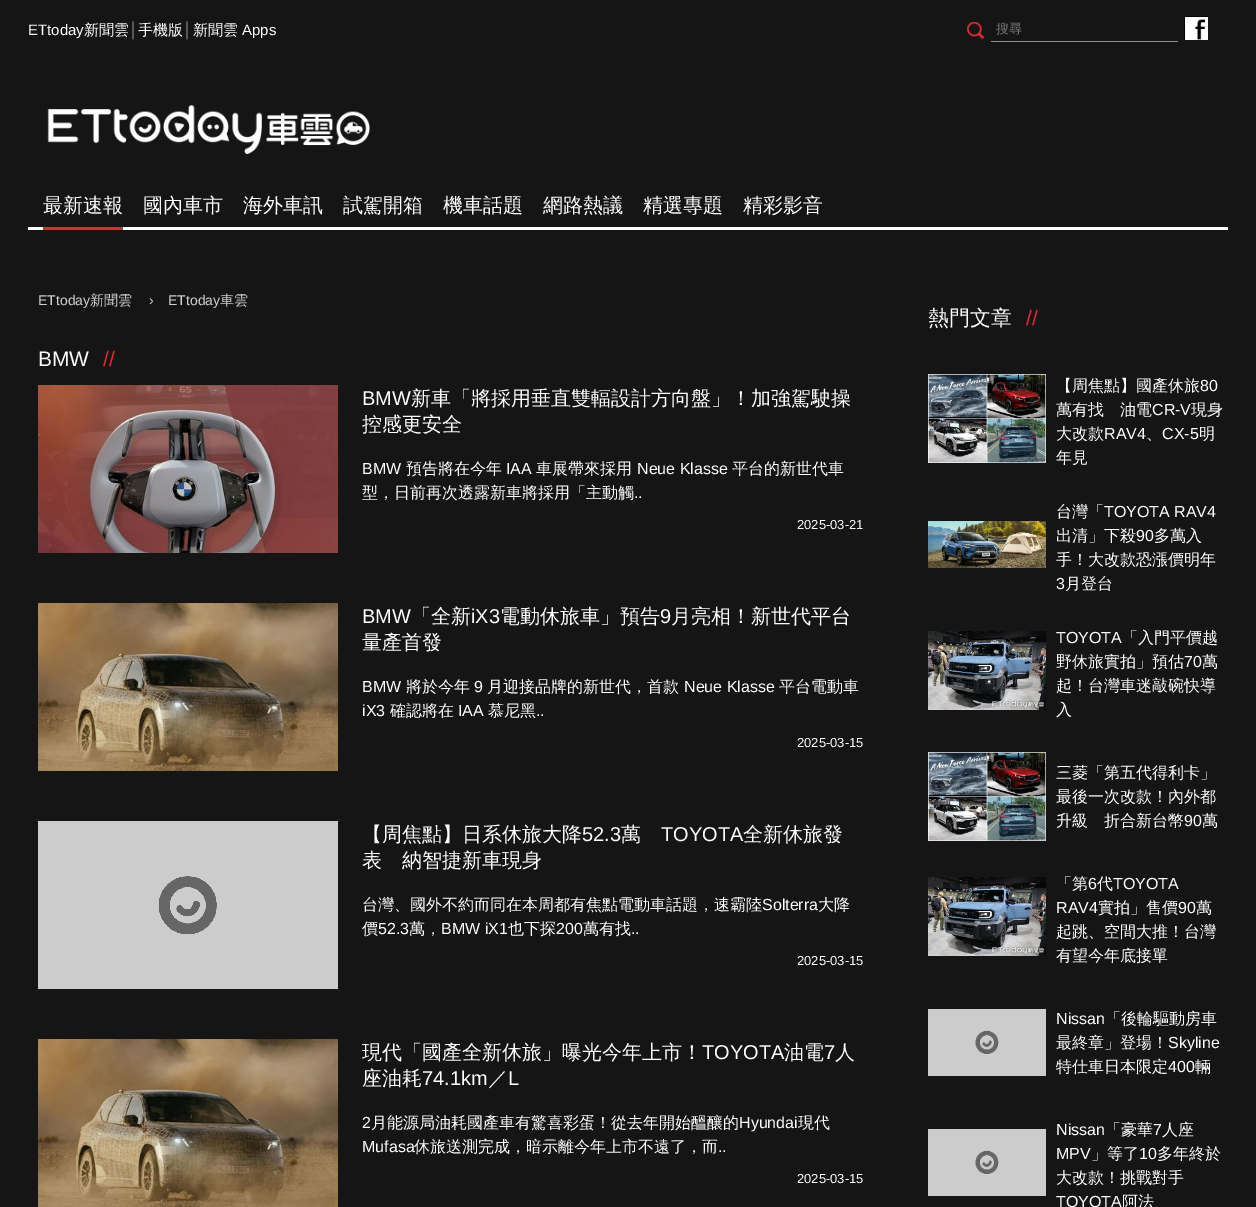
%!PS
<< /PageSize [1256 1207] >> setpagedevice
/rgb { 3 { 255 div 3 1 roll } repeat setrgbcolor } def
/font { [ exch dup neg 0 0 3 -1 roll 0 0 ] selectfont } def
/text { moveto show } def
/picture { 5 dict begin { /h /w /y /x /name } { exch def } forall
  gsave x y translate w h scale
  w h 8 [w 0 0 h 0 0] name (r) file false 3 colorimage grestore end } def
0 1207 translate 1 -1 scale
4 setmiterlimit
21 21 21 rgb
0 0 1256 1207 rectfill
(img_01.rgb) 967 22 17 17 picture
143 143 143 rgb
991 41 187 1 rectfill
(img_02.rgb) 1184 16 24 24 picture
(img_03.rgb) 47 105 323 49 picture
255 255 255 rgb
28 227 1200 3 rectfill
222 43 49 rgb
43 227 80 3 rectfill
(img_04.rgb) 38 385 300 168 picture
(img_05.rgb) 38 603 300 168 picture
(img_06.rgb) 38 821 300 168 picture
(img_05.rgb) 38 1039 300 168 picture
(img_07.rgb) 928 374 118 89 picture
(img_08.rgb) 928 521 118 47 picture
(img_09.rgb) 928 631 118 79 picture
(img_07.rgb) 928 752 118 89 picture
(img_09.rgb) 928 877 118 79 picture
(img_10.rgb) 928 1009 118 67 picture
(img_10.rgb) 928 1129 118 67 picture
/LiberationSans-Regular 15 font
255 255 255 rgb
(ETtoday) 28 35 text
/WenQuanYiZenHei-Medium 15 font
(新聞雲) 84 35 text
/LiberationSans-Regular 15 font
143 143 143 rgb
(│) 129 35 text
/WenQuanYiZenHei-Medium 15 font
255 255 255 rgb
(手機版) 138 35 text
/LiberationSans-Regular 15 font
143 143 143 rgb
(│) 183 35 text
/WenQuanYiZenHei-Medium 15 font
255 255 255 rgb
(新聞雲) 193 35 text
/LiberationSans-Regular 15 font
(Apps) 242 35 text
/WenQuanYiZenHei-Medium 13 font
117 117 117 rgb
(搜尋) 996 33 text
/WenQuanYiZenHei-Medium 20 font
255 255 255 rgb
(最新速報) 43 212 text
(國內車市) 143 212 text
(海外車訊) 243 212 text
(試駕開箱) 343 212 text
(機車話題) 443 212 text
(網路熱議) 543 212 text
(精選專題) 643 212 text
(精彩影音) 743 212 text
/LiberationSans-Regular 14 font
208 208 208 rgb
(ETtoday) 38 305 text
/WenQuanYiZenHei-Medium 14 font
(新聞雲) 90 305 text
/LiberationSans-Regular 14 font
(›) 149 305 text
(ETtoday) 168 305 text
/WenQuanYiZenHei-Medium 14 font
(車雲) 220 305 text
/LiberationSans-Regular 21 font
255 255 255 rgb
(BMW) 38 366 text
222 43 49 rgb
(//) 103 366 text
/LiberationSans-Regular 20 font
255 255 255 rgb
(BMW) 362 405 text
/WenQuanYiZenHei-Medium 20 font
(新車「將採用垂直雙輻設計方向盤」！加強駕駛操) 411 405 text
(控感更安全) 362 431 text
/LiberationSans-Regular 16 font
(BMW) 362 474 text
/WenQuanYiZenHei-Medium 16 font
(預告將在今年) 406 474 text
/LiberationSans-Regular 16 font
(IAA) 506 474 text
/WenQuanYiZenHei-Medium 16 font
(車展帶來採用) 536 474 text
/LiberationSans-Regular 16 font
(Neue Klasse) 637 474 text
/WenQuanYiZenHei-Medium 16 font
(平台的新世代車) 732 474 text
(型，日前再次透露新車將採用「主動觸) 362 498 text
/LiberationSans-Regular 16 font
(..) 634 498 text
/LiberationSans-Regular 13 font
(2025-03-21) 797 529 text
/LiberationSans-Regular 20 font
(BMW) 362 623 text
/WenQuanYiZenHei-Medium 20 font
(「全新) 411 623 text
/LiberationSans-Regular 20 font
(iX3) 471 623 text
/WenQuanYiZenHei-Medium 20 font
(電動休旅車」預告) 500 623 text
/LiberationSans-Regular 20 font
(9) 660 623 text
/WenQuanYiZenHei-Medium 20 font
(月亮相！新世代平台) 671 623 text
(量產首發) 362 649 text
/LiberationSans-Regular 16 font
(BMW) 362 692 text
/WenQuanYiZenHei-Medium 16 font
(將於今年) 406 692 text
/LiberationSans-Regular 16 font
(9) 474 692 text
/WenQuanYiZenHei-Medium 16 font
(月迎接品牌的新世代，首款) 487 692 text
/LiberationSans-Regular 16 font
(Neue Klasse) 684 692 text
/WenQuanYiZenHei-Medium 16 font
(平台電動車) 779 692 text
/LiberationSans-Regular 16 font
(iX3) 362 716 text
/WenQuanYiZenHei-Medium 16 font
(確認將在) 390 716 text
/LiberationSans-Regular 16 font
(IAA) 458 716 text
/WenQuanYiZenHei-Medium 16 font
(慕尼黑) 488 716 text
/LiberationSans-Regular 16 font
(..) 536 716 text
/LiberationSans-Regular 13 font
(2025-03-15) 797 747 text
/WenQuanYiZenHei-Medium 20 font
(【周焦點】日系休旅大降) 362 841 text
/LiberationSans-Regular 20 font
(52.3) 582 841 text
/WenQuanYiZenHei-Medium 20 font
(萬) 621 841 text
/LiberationSans-Regular 20 font
(TOYOTA) 661 841 text
/WenQuanYiZenHei-Medium 20 font
(全新休旅發) 743 841 text
(表　納智捷新車現身) 362 867 text
/WenQuanYiZenHei-Medium 16 font
(台灣、國外不約而同在本周都有焦點電動車話題，速霸陸) 362 910 text
/LiberationSans-Regular 16 font
(Solterra) 762 910 text
/WenQuanYiZenHei-Medium 16 font
(大降) 818 910 text
(價) 362 934 text
/LiberationSans-Regular 16 font
(52.3) 378 934 text
/WenQuanYiZenHei-Medium 16 font
(萬，) 409 934 text
/LiberationSans-Regular 16 font
(BMW iX1) 441 934 text
/WenQuanYiZenHei-Medium 16 font
(也下探) 508 934 text
/LiberationSans-Regular 16 font
(200) 556 934 text
/WenQuanYiZenHei-Medium 16 font
(萬有找) 583 934 text
/LiberationSans-Regular 16 font
(..) 631 934 text
/LiberationSans-Regular 13 font
(2025-03-15) 797 965 text
/WenQuanYiZenHei-Medium 20 font
(現代「國產全新休旅」曝光今年上市！) 362 1059 text
/LiberationSans-Regular 20 font
(TOYOTA) 702 1059 text
/WenQuanYiZenHei-Medium 20 font
(油電) 784 1059 text
/LiberationSans-Regular 20 font
(7) 824 1059 text
/WenQuanYiZenHei-Medium 20 font
(人) 835 1059 text
(座油耗) 362 1085 text
/LiberationSans-Regular 20 font
(74.1km) 422 1085 text
/WenQuanYiZenHei-Medium 20 font
(／) 488 1085 text
/LiberationSans-Regular 20 font
(L) 508 1085 text
/LiberationSans-Regular 16 font
(2) 362 1128 text
/WenQuanYiZenHei-Medium 16 font
(月能源局油耗國產車有驚喜彩蛋！從去年開始醞釀的) 371 1128 text
/LiberationSans-Regular 16 font
(Hyundai) 739 1128 text
/WenQuanYiZenHei-Medium 16 font
(現代) 798 1128 text
/LiberationSans-Regular 16 font
(Mufasa) 362 1152 text
/WenQuanYiZenHei-Medium 16 font
(休旅送測完成，暗示離今年上市不遠了，而) 414 1152 text
/LiberationSans-Regular 16 font
(..) 718 1152 text
/LiberationSans-Regular 13 font
(2025-03-15) 797 1183 text
/WenQuanYiZenHei-Medium 21 font
(熱門文章) 928 325 text
/LiberationSans-Regular 21 font
222 43 49 rgb
(//) 1026 325 text
/WenQuanYiZenHei-Medium 16 font
255 255 255 rgb
(【周焦點】國產休旅) 1056 391 text
/LiberationSans-Regular 16 font
(80) 1200 391 text
/WenQuanYiZenHei-Medium 16 font
(萬有找　油電) 1056 415 text
/LiberationSans-Regular 16 font
(CR-V) 1152 415 text
/WenQuanYiZenHei-Medium 16 font
(現身) 1191 415 text
(大改款) 1056 439 text
/LiberationSans-Regular 16 font
(RAV4) 1104 439 text
/WenQuanYiZenHei-Medium 16 font
(、) 1146 439 text
/LiberationSans-Regular 16 font
(CX-5) 1162 439 text
/WenQuanYiZenHei-Medium 16 font
(明) 1199 439 text
(年見) 1056 463 text
(台灣「) 1056 517 text
/LiberationSans-Regular 16 font
(TOYOTA RAV4) 1104 517 text
/WenQuanYiZenHei-Medium 16 font
(出清」下殺) 1056 541 text
/LiberationSans-Regular 16 font
(90) 1136 541 text
/WenQuanYiZenHei-Medium 16 font
(多萬入) 1154 541 text
(手！大改款恐漲價明年) 1056 565 text
/LiberationSans-Regular 16 font
(3) 1056 589 text
/WenQuanYiZenHei-Medium 16 font
(月登台) 1065 589 text
/LiberationSans-Regular 16 font
(TOYOTA) 1056 643 text
/WenQuanYiZenHei-Medium 16 font
(「入門平價越) 1122 643 text
(野休旅實拍」預估) 1056 667 text
/LiberationSans-Regular 16 font
(70) 1184 667 text
/WenQuanYiZenHei-Medium 16 font
(萬) 1202 667 text
(起！台灣車迷敲碗快導) 1056 691 text
(入) 1056 715 text
(三菱「第五代得利卡」) 1056 778 text
(最後一次改款！內外都) 1056 802 text
(升級　折合新台幣) 1056 826 text
/LiberationSans-Regular 16 font
(90) 1184 826 text
/WenQuanYiZenHei-Medium 16 font
(萬) 1202 826 text
(「第) 1056 889 text
/LiberationSans-Regular 16 font
(6) 1088 889 text
/WenQuanYiZenHei-Medium 16 font
(代) 1097 889 text
/LiberationSans-Regular 16 font
(TOYOTA) 1113 889 text
(RAV4) 1056 913 text
/WenQuanYiZenHei-Medium 16 font
(實拍」售價) 1098 913 text
/LiberationSans-Regular 16 font
(90) 1178 913 text
/WenQuanYiZenHei-Medium 16 font
(萬) 1196 913 text
(起跳、空間大推！台灣) 1056 937 text
(有望今年底接單) 1056 961 text
/LiberationSans-Regular 16 font
(Nissan) 1056 1024 text
/WenQuanYiZenHei-Medium 16 font
(「後輪驅動房車) 1105 1024 text
(最終章」登場！) 1056 1048 text
/LiberationSans-Regular 16 font
(Skyline) 1168 1048 text
/WenQuanYiZenHei-Medium 16 font
(特仕車日本限定) 1056 1072 text
/LiberationSans-Regular 16 font
(400) 1168 1072 text
/WenQuanYiZenHei-Medium 16 font
(輛) 1195 1072 text
/LiberationSans-Regular 16 font
(Nissan) 1056 1135 text
/WenQuanYiZenHei-Medium 16 font
(「豪華) 1105 1135 text
/LiberationSans-Regular 16 font
(7) 1153 1135 text
/WenQuanYiZenHei-Medium 16 font
(人座) 1162 1135 text
/LiberationSans-Regular 16 font
(MPV) 1056 1159 text
/WenQuanYiZenHei-Medium 16 font
(」等了) 1091 1159 text
/LiberationSans-Regular 16 font
(10) 1139 1159 text
/WenQuanYiZenHei-Medium 16 font
(多年終於) 1157 1159 text
(大改款！挑戰對手) 1056 1183 text
/LiberationSans-Regular 16 font
(TOYOTA) 1056 1207 text
/WenQuanYiZenHei-Medium 16 font
(阿法) 1122 1207 text
showpage
